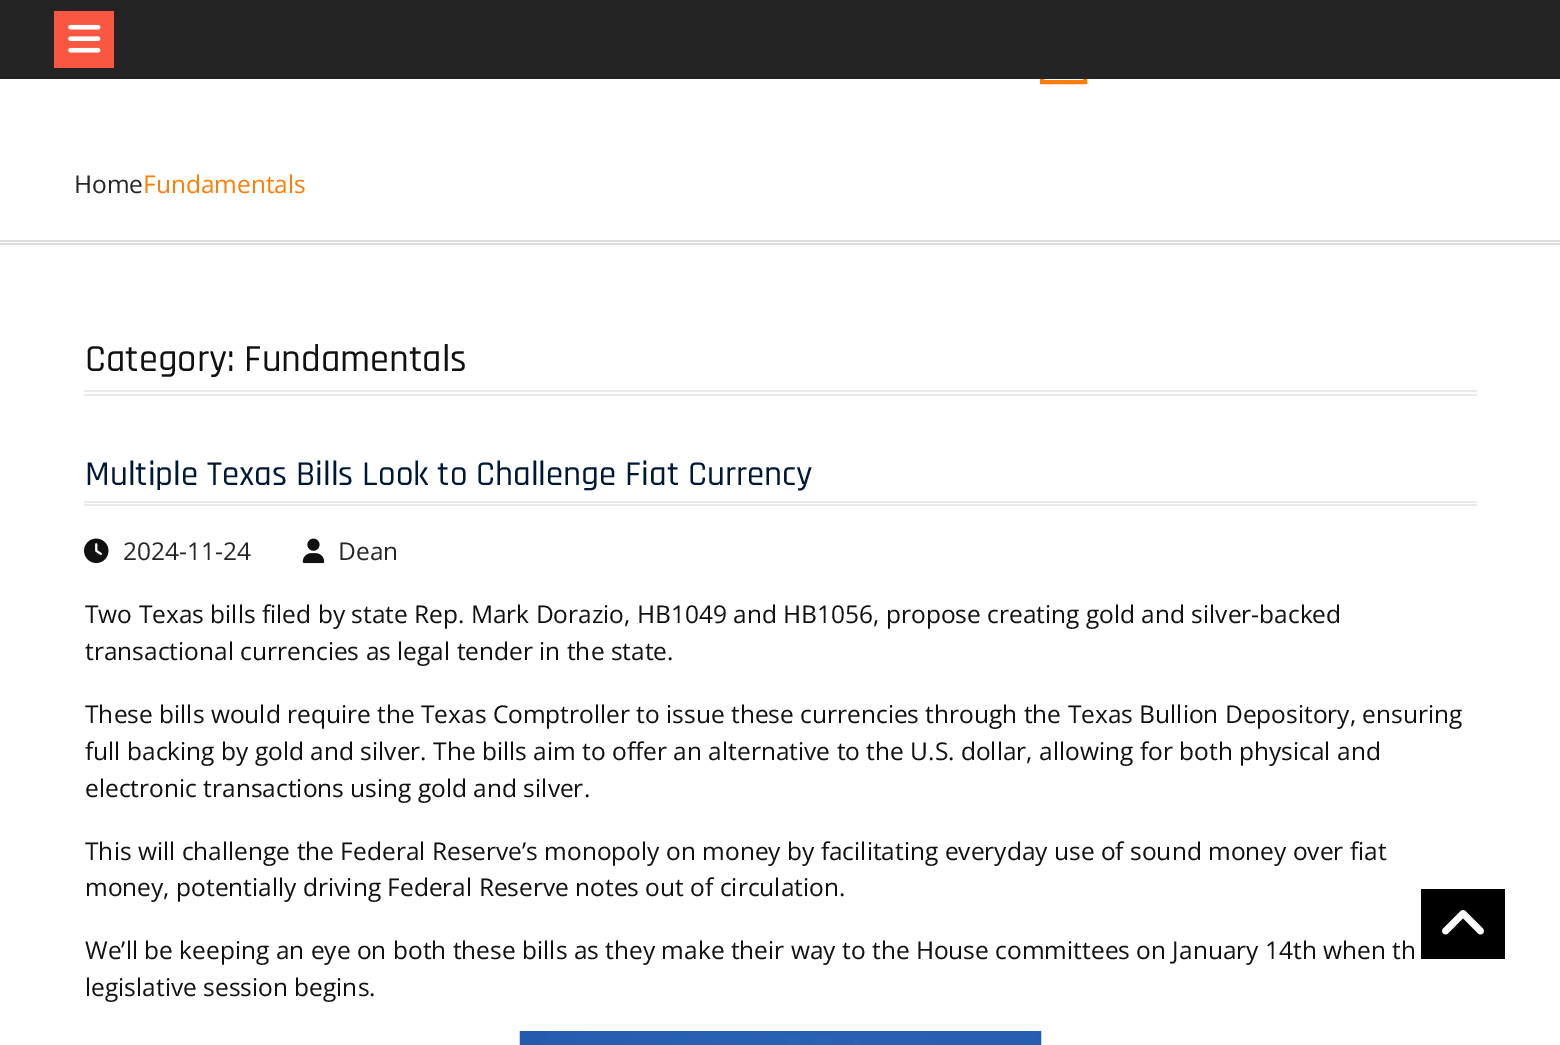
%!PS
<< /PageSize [1560 1045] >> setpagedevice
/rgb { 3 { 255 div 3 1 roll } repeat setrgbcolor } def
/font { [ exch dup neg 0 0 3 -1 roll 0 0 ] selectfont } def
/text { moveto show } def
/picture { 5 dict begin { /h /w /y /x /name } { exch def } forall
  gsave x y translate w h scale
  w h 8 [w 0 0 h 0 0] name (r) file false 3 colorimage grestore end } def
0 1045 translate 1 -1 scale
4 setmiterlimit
255 255 255 rgb
0 0 1560 1045 rectfill
255 125 6 rgb
4 setlinewidth
1042 51 43 31 rectstroke
36 36 36 rgb
0 0 1560 79 rectfill
250 87 66 rgb
54 11 60 57 rectfill
(img_01.rgb) 68 24 33 29 picture
221 221 221 rgb
0 240 1560 2 rectfill
0 243 1560 2 rectfill
235 233 235 rgb
84 390 1393 2 rectfill
84 394 1393 2 rectfill
84 501 1393 2 rectfill
84 504 1393 2 rectfill
(img_02.rgb) 84 538 25 26 picture
(img_03.rgb) 302 538 23 26 picture
(img_04.rgb) 519 1031 523 14 picture
0 0 0 rgb
1421 889 84 70 rectfill
(img_05.rgb) 1442 910 42 25 picture
/OpenSans-Regular 24.5 font
39 39 39 rgb
(Home) 74 193 text
255 125 6 rgb
(Fundamentals) 143 193 text
/Rajdhani-Medium 38.5 font
17 17 17 rgb
(Category: Fundamentals) 85 371 text
/Rajdhani-Medium 35 font
0 24 55 rgb
(Multiple Texas Bills Look to Challenge Fiat Currency) 85 485 text
/OpenSans-Regular 24.5 font
39 39 39 rgb
(2024-11-24) 123 560 text
(Dean) 338 560 text
17 17 17 rgb
(Two Texas bills filed by state Rep. Mark Dorazio, HB1049 and HB1056, propose creating gold and silver-backed) 85 623 text
(transactional currencies as legal tender in the state.) 85 660 text
(These bills would require the Texas Comptroller to issue these currencies through the Texas Bullion Depository, ensuring) 85 723 text
(full backing by gold and silver. The bills aim to offer an alternative to the U.S. dollar, allowing for both physical and) 85 760 text
(electronic transactions using gold and silver.) 85 797 text
(This will challenge the Federal Reserve’s monopoly on money by facilitating everyday use of sound money over fiat) 85 860 text
(money, potentially driving Federal Reserve notes out of circulation.) 85 896 text
(We’ll be keeping an eye on both these bills as they make their way to the House committees on January 14th when th) 85 959 text
(legislative session begins.) 85 996 text
showpage
